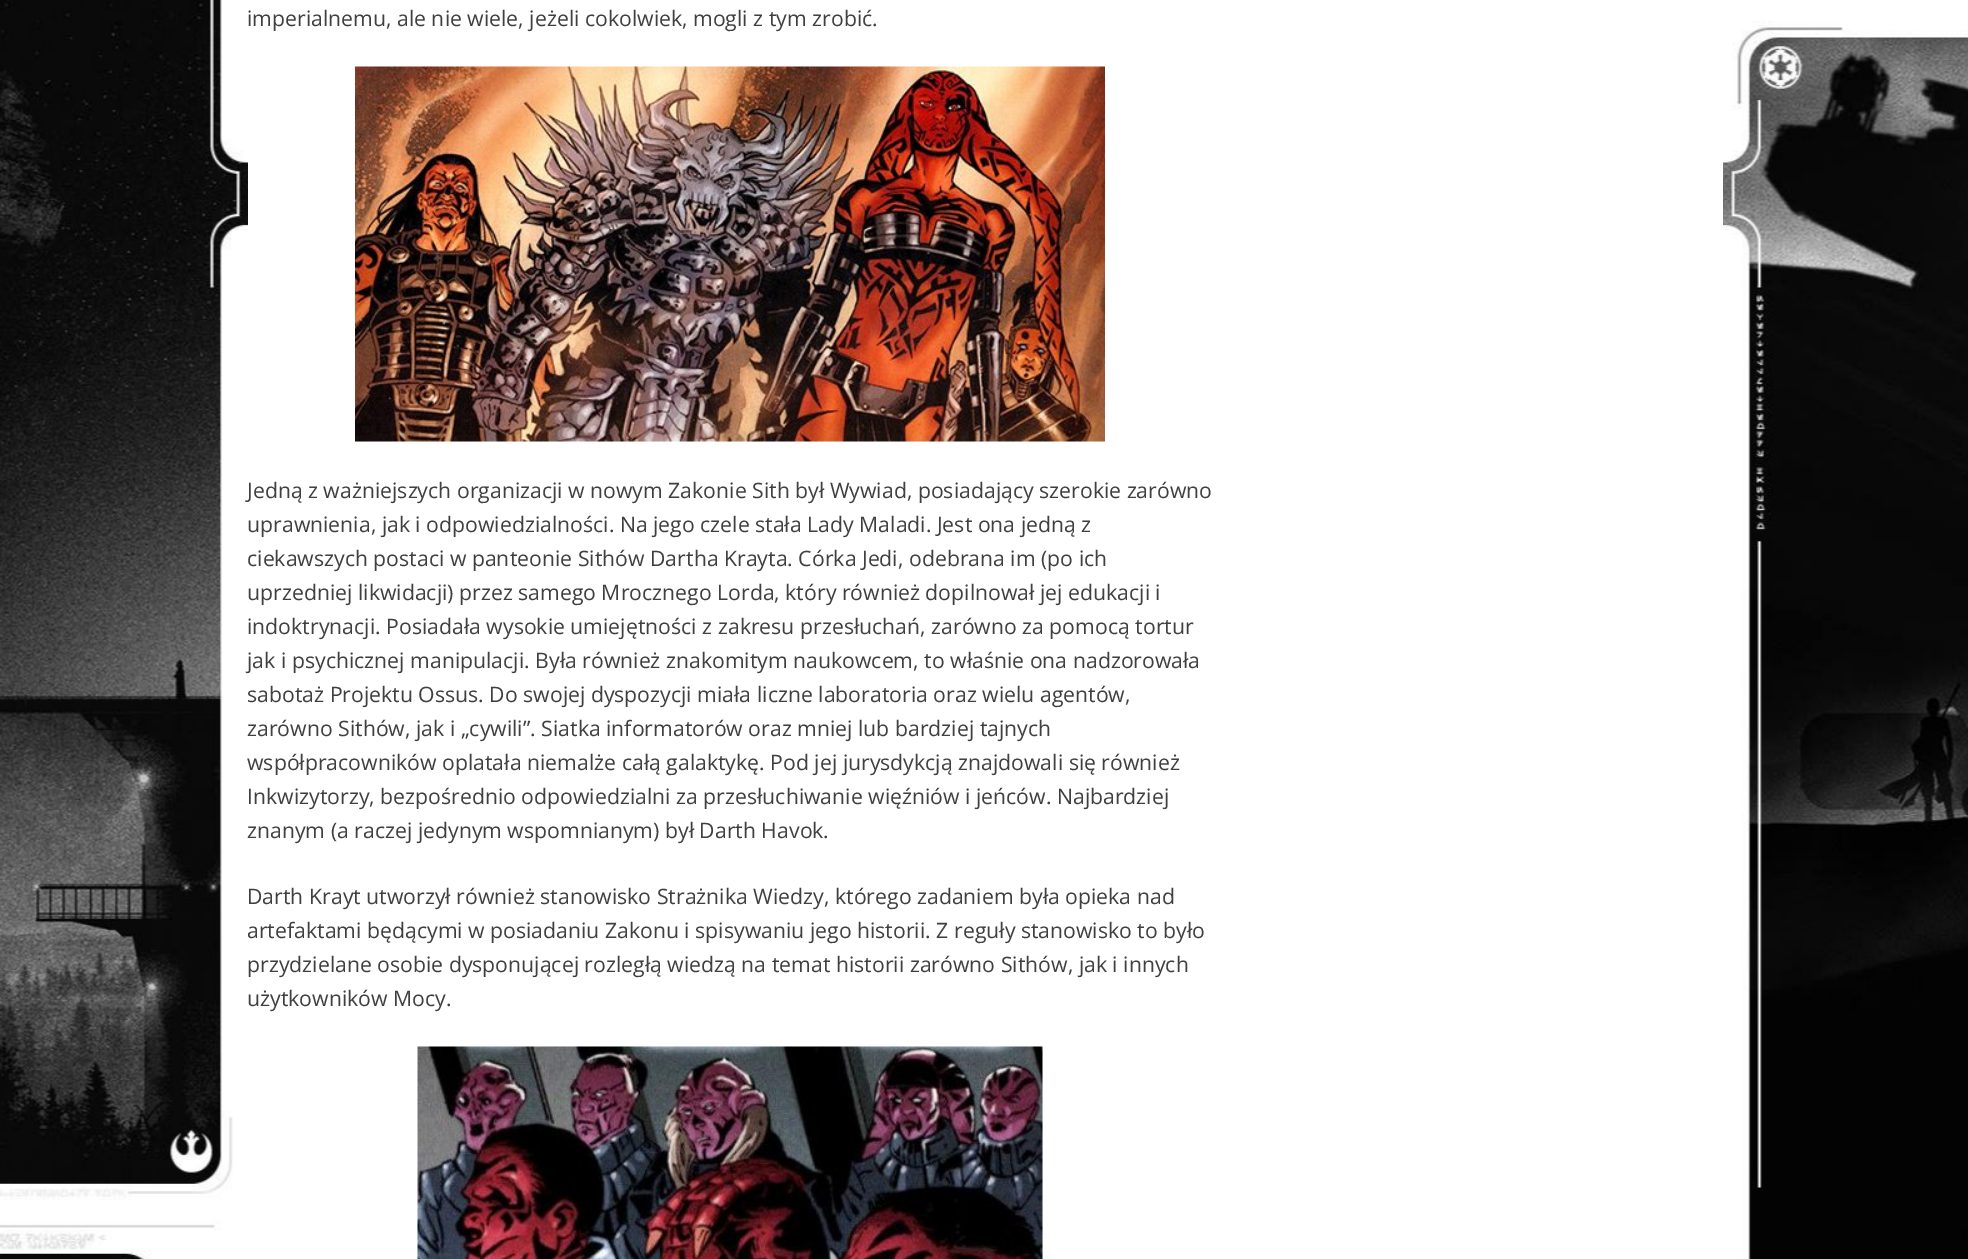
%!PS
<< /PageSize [1968 1259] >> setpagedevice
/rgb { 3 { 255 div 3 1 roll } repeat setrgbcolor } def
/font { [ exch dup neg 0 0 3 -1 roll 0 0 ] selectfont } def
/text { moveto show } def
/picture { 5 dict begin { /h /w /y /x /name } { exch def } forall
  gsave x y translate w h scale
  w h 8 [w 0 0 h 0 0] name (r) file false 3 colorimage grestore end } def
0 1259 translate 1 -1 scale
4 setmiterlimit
255 255 255 rgb
0 0 1968 1259 rectfill
(img_01.rgb) 0 0 1968 1259 picture
248 160 1475 70 rectfill
(img_02.rgb) 355 66 750 376 picture
(img_03.rgb) 417 1046 626 213 picture
/OpenSans-Regular 21.25 font
64 64 64 rgb
(imperialnemu, ale nie wiele, jeżeli cokolwiek, mogli z tym zrobić.) 247 26 text
(Jedną z ważniejszych organizacji w nowym Zakonie Sith był Wywiad, posiadający szerokie zarówno) 247 498 text
(uprawnienia, jak i odpowiedzialności. Na jego czele stała Lady Maladi. Jest ona jedną z) 247 532 text
(ciekawszych postaci w panteonie Sithów Dartha Krayta. Córka Jedi, odebrana im \(po ich) 247 566 text
(uprzedniej likwidacji\) przez samego Mrocznego Lorda, który również dopilnował jej edukacji i) 247 600 text
(indoktrynacji. Posiadała wysokie umiejętności z zakresu przesłuchań, zarówno za pomocą tortur) 247 634 text
(jak i psychicznej manipulacji. Była również znakomitym naukowcem, to właśnie ona nadzorowała) 247 668 text
(sabotaż Projektu Ossus. Do swojej dyspozycji miała liczne laboratoria oraz wielu agentów,) 247 702 text
(zarówno Sithów, jak i „cywili”. Siatka informatorów oraz mniej lub bardziej tajnych) 247 736 text
(współpracowników oplatała niemalże całą galaktykę. Pod jej jurysdykcją znajdowali się również) 247 770 text
(Inkwizytorzy, bezpośrednio odpowiedzialni za przesłuchiwanie więźniów i jeńców. Najbardziej) 247 804 text
(znanym \(a raczej jedynym wspomnianym\) był Darth Havok.) 247 838 text
(Darth Krayt utworzył również stanowisko Strażnika Wiedzy, którego zadaniem była opieka nad) 247 904 text
(artefaktami będącymi w posiadaniu Zakonu i spisywaniu jego historii. Z reguły stanowisko to było) 247 938 text
(przydzielane osobie dysponującej rozległą wiedzą na temat historii zarówno Sithów, jak i innych) 247 972 text
(użytkowników Mocy.) 247 1006 text
showpage
